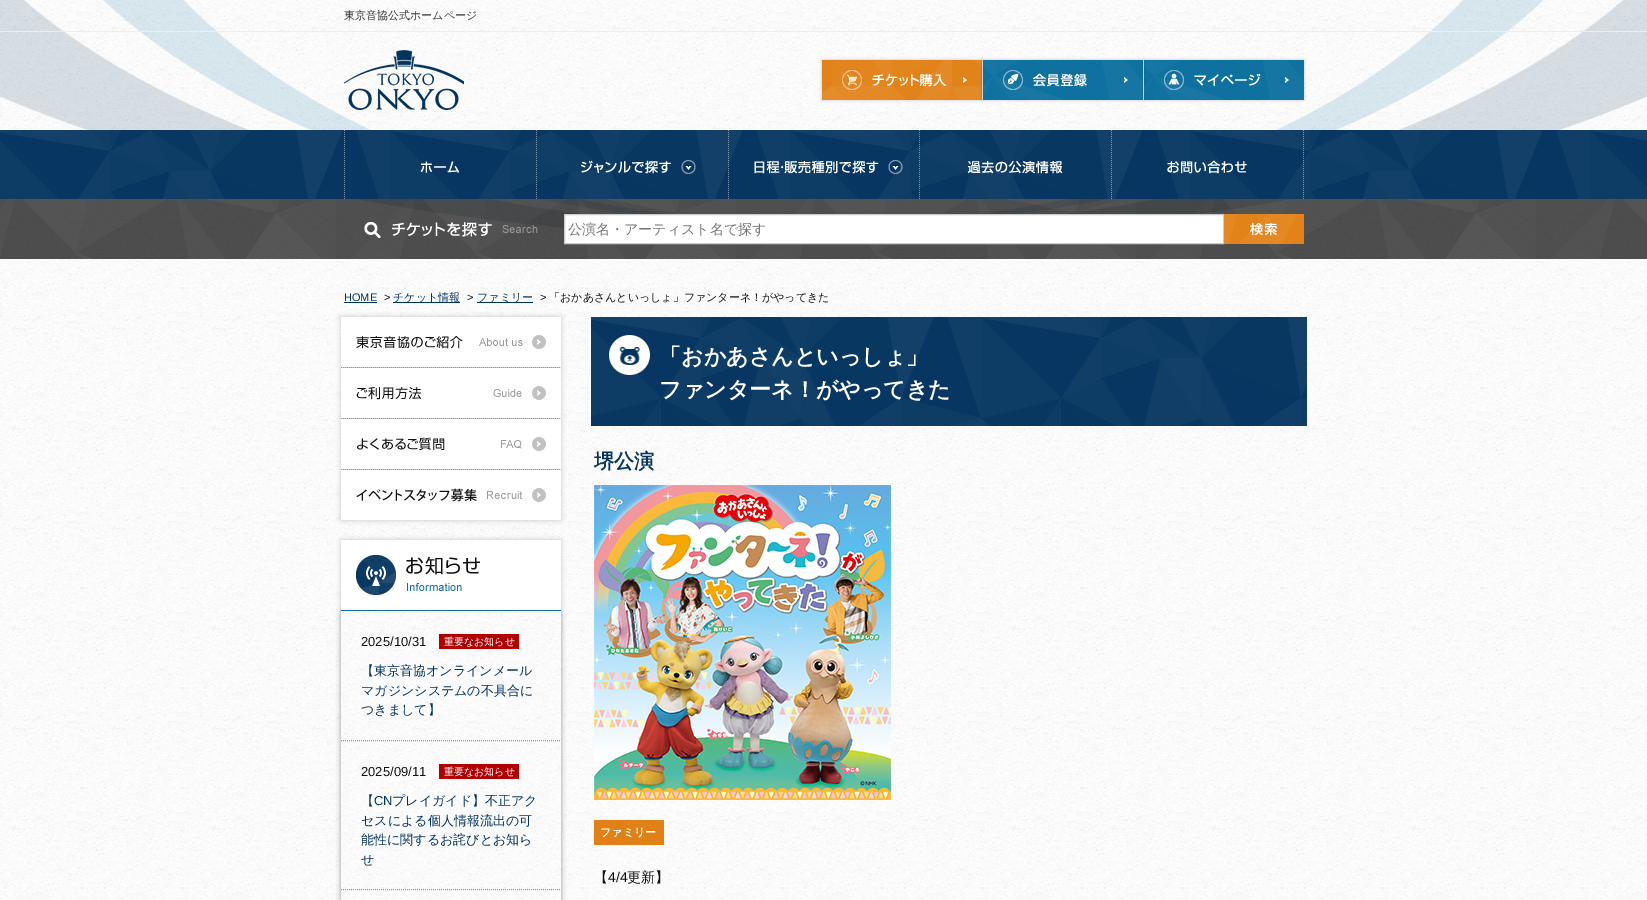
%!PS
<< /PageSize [1647 900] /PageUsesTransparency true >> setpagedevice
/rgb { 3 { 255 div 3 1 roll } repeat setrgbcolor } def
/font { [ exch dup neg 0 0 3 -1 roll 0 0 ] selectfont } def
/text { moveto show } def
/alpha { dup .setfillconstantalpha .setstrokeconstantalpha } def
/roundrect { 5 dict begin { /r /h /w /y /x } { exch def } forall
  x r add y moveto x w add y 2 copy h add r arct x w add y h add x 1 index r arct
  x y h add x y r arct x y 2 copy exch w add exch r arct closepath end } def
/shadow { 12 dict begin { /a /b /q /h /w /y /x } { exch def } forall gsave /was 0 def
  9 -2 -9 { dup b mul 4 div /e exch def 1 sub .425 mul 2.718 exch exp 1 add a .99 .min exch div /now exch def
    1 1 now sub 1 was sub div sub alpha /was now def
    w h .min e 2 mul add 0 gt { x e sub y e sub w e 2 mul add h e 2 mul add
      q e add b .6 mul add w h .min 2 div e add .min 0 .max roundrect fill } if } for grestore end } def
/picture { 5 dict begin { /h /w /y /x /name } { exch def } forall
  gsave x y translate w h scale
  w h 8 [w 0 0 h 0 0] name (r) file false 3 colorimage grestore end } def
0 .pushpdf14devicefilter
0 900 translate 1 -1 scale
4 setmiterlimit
255 255 255 rgb
0 0 1647 900 rectfill
(img_01.rgb) 0 0 1647 900 picture
(img_02.rgb) 0 0 1647 228 picture
238 238 238 rgb
0 31 1647 1 rectfill
(img_03.rgb) 344 50 120 60 picture
0 0 0 rgb
822 60 160 40 0 1.5 0.2 shadow
(img_04.rgb) 822 60 160 40 picture
983 60 160 40 0 1.5 0.2 shadow
(img_05.rgb) 983 60 160 40 picture
1144 60 160 40 0 1.5 0.2 shadow
(img_06.rgb) 1144 60 160 40 picture
(img_07.rgb) 0 130 1647 69 picture
(img_08.rgb) 344 130 116 69 picture
(img_09.rgb) 536 130 160 69 picture
(img_10.rgb) 728 130 175 69 picture
(img_11.rgb) 919 130 144 69 picture
(img_12.rgb) 1111 130 193 69 picture
(img_13.rgb) 0 199 1647 60 picture
(img_14.rgb) 364 222 174 16 picture
255 255 255 rgb
564.5 214.5 moveto 659 0 rlineto 0 29 rlineto -659 0 rlineto closepath gsave fill grestore
204 204 204 rgb
stroke
(img_15.rgb) 1224 214 80 30 picture
1 51 95 rgb
344 302 33 1 rectfill
393 302 67 1 rectfill
477 302 56 1 rectfill
0 0 0 rgb
341 317 220 203 0 2.5 0.2 shadow
153 153 153 rgb
[1 1] 0 setdash
341 367.5 moveto 220 0 rlineto stroke
(img_16.rgb) 341 317 220 50 picture
341 418.5 moveto 220 0 rlineto stroke
(img_17.rgb) 341 368 220 50 picture
341 469.5 moveto 220 0 rlineto stroke
(img_18.rgb) 341 419 220 50 picture
(img_19.rgb) 341 470 220 50 picture
gsave
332 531 moveto 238 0 rlineto 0 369 rlineto -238 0 rlineto closepath 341 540 moveto 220 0 rlineto 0 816 rlineto -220 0 rlineto closepath eoclip newpath
0 0 0 rgb
341 540 220 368 0 2.5 0.2 shadow
grestore
gsave
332 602 moveto 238 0 rlineto 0 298 rlineto -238 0 rlineto closepath 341 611 moveto 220 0 rlineto 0 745 rlineto -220 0 rlineto closepath eoclip newpath
0 0 0 rgb
341 611 220 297 0 2.5 0.2 shadow
grestore
(img_20.rgb) 341 540 220 71 picture
176 0 0 rgb
439 634 80 15 rectfill
153 153 153 rgb
341 740.5 moveto 220 0 rlineto stroke
176 0 0 rgb
439 764 80 15 rectfill
153 153 153 rgb
341 889.5 moveto 220 0 rlineto stroke
(img_21.rgb) 591 317 716 109 picture
(img_22.rgb) 609 335 41 40 picture
(img_23.rgb) 594 485 297 315 picture
225 129 21 rgb
594 820 70 25 rectfill
/WenQuanYiZenHei-Medium 11 font
51 51 51 rgb
(東京音協公式ホームページ) 344 19 text
/WenQuanYiZenHei-Medium 14 font
117 117 117 rgb
(公演名・アーティスト名で探す) 568 234 text
/LiberationSans-Regular 11 font
6 53 96 rgb
(HOME) 344 301 text
17 17 17 rgb
(>) 384 301 text
/WenQuanYiZenHei-Medium 11 font
6 53 96 rgb
(チケット情報) 393 301 text
/LiberationSans-Regular 11 font
17 17 17 rgb
(>) 467 301 text
/WenQuanYiZenHei-Medium 11 font
6 53 96 rgb
(ファミリー) 477 301 text
/LiberationSans-Regular 11 font
17 17 17 rgb
(>) 540 301 text
/WenQuanYiZenHei-Medium 11 font
(「おかあさんといっしょ」ファンターネ！がやってきた) 549 301 text
/LiberationSans-Regular 13 font
(2025/10/31) 361 646 text
/WenQuanYiZenHei-Medium 10 font
255 255 255 rgb
(重要なお知らせ) 444 645 text
/WenQuanYiZenHei-Medium 13 font
0 51 95 rgb
(【東京音協オンラインメール) 361 675 text
(マガジンシステムの不具合に) 361 695 text
(つきまして】) 361 714 text
/LiberationSans-Regular 13 font
17 17 17 rgb
(2025/09/11) 361 776 text
/WenQuanYiZenHei-Medium 10 font
255 255 255 rgb
(重要なお知らせ) 444 775 text
/WenQuanYiZenHei-Medium 13 font
0 51 95 rgb
(【) 361 805 text
/LiberationSans-Regular 13 font
(CN) 374 805 text
/WenQuanYiZenHei-Medium 13 font
(プレイガイド】不正アク) 392 805 text
(セスによる個人情報流出の可) 361 825 text
(能性に関するお詫びとお知ら) 361 844 text
(せ) 361 864 text
/WenQuanYiZenHei-Bold 22 font
255 255 255 rgb
(「おかあさんといっしょ」) 659 364 text
(ファンターネ！がやってきた) 659 397 text
/WenQuanYiZenHei-Bold 20 font
6 53 96 rgb
(堺公演) 594 468 text
/WenQuanYiZenHei-Bold 11 font
255 255 255 rgb
(ファミリー) 600 836 text
/WenQuanYiZenHei-Medium 14 font
17 17 17 rgb
(【) 594 882 text
/LiberationSans-Regular 14 font
(4/4) 608 882 text
/WenQuanYiZenHei-Medium 14 font
(更新】) 627 882 text
.poppdf14devicefilter showpage
